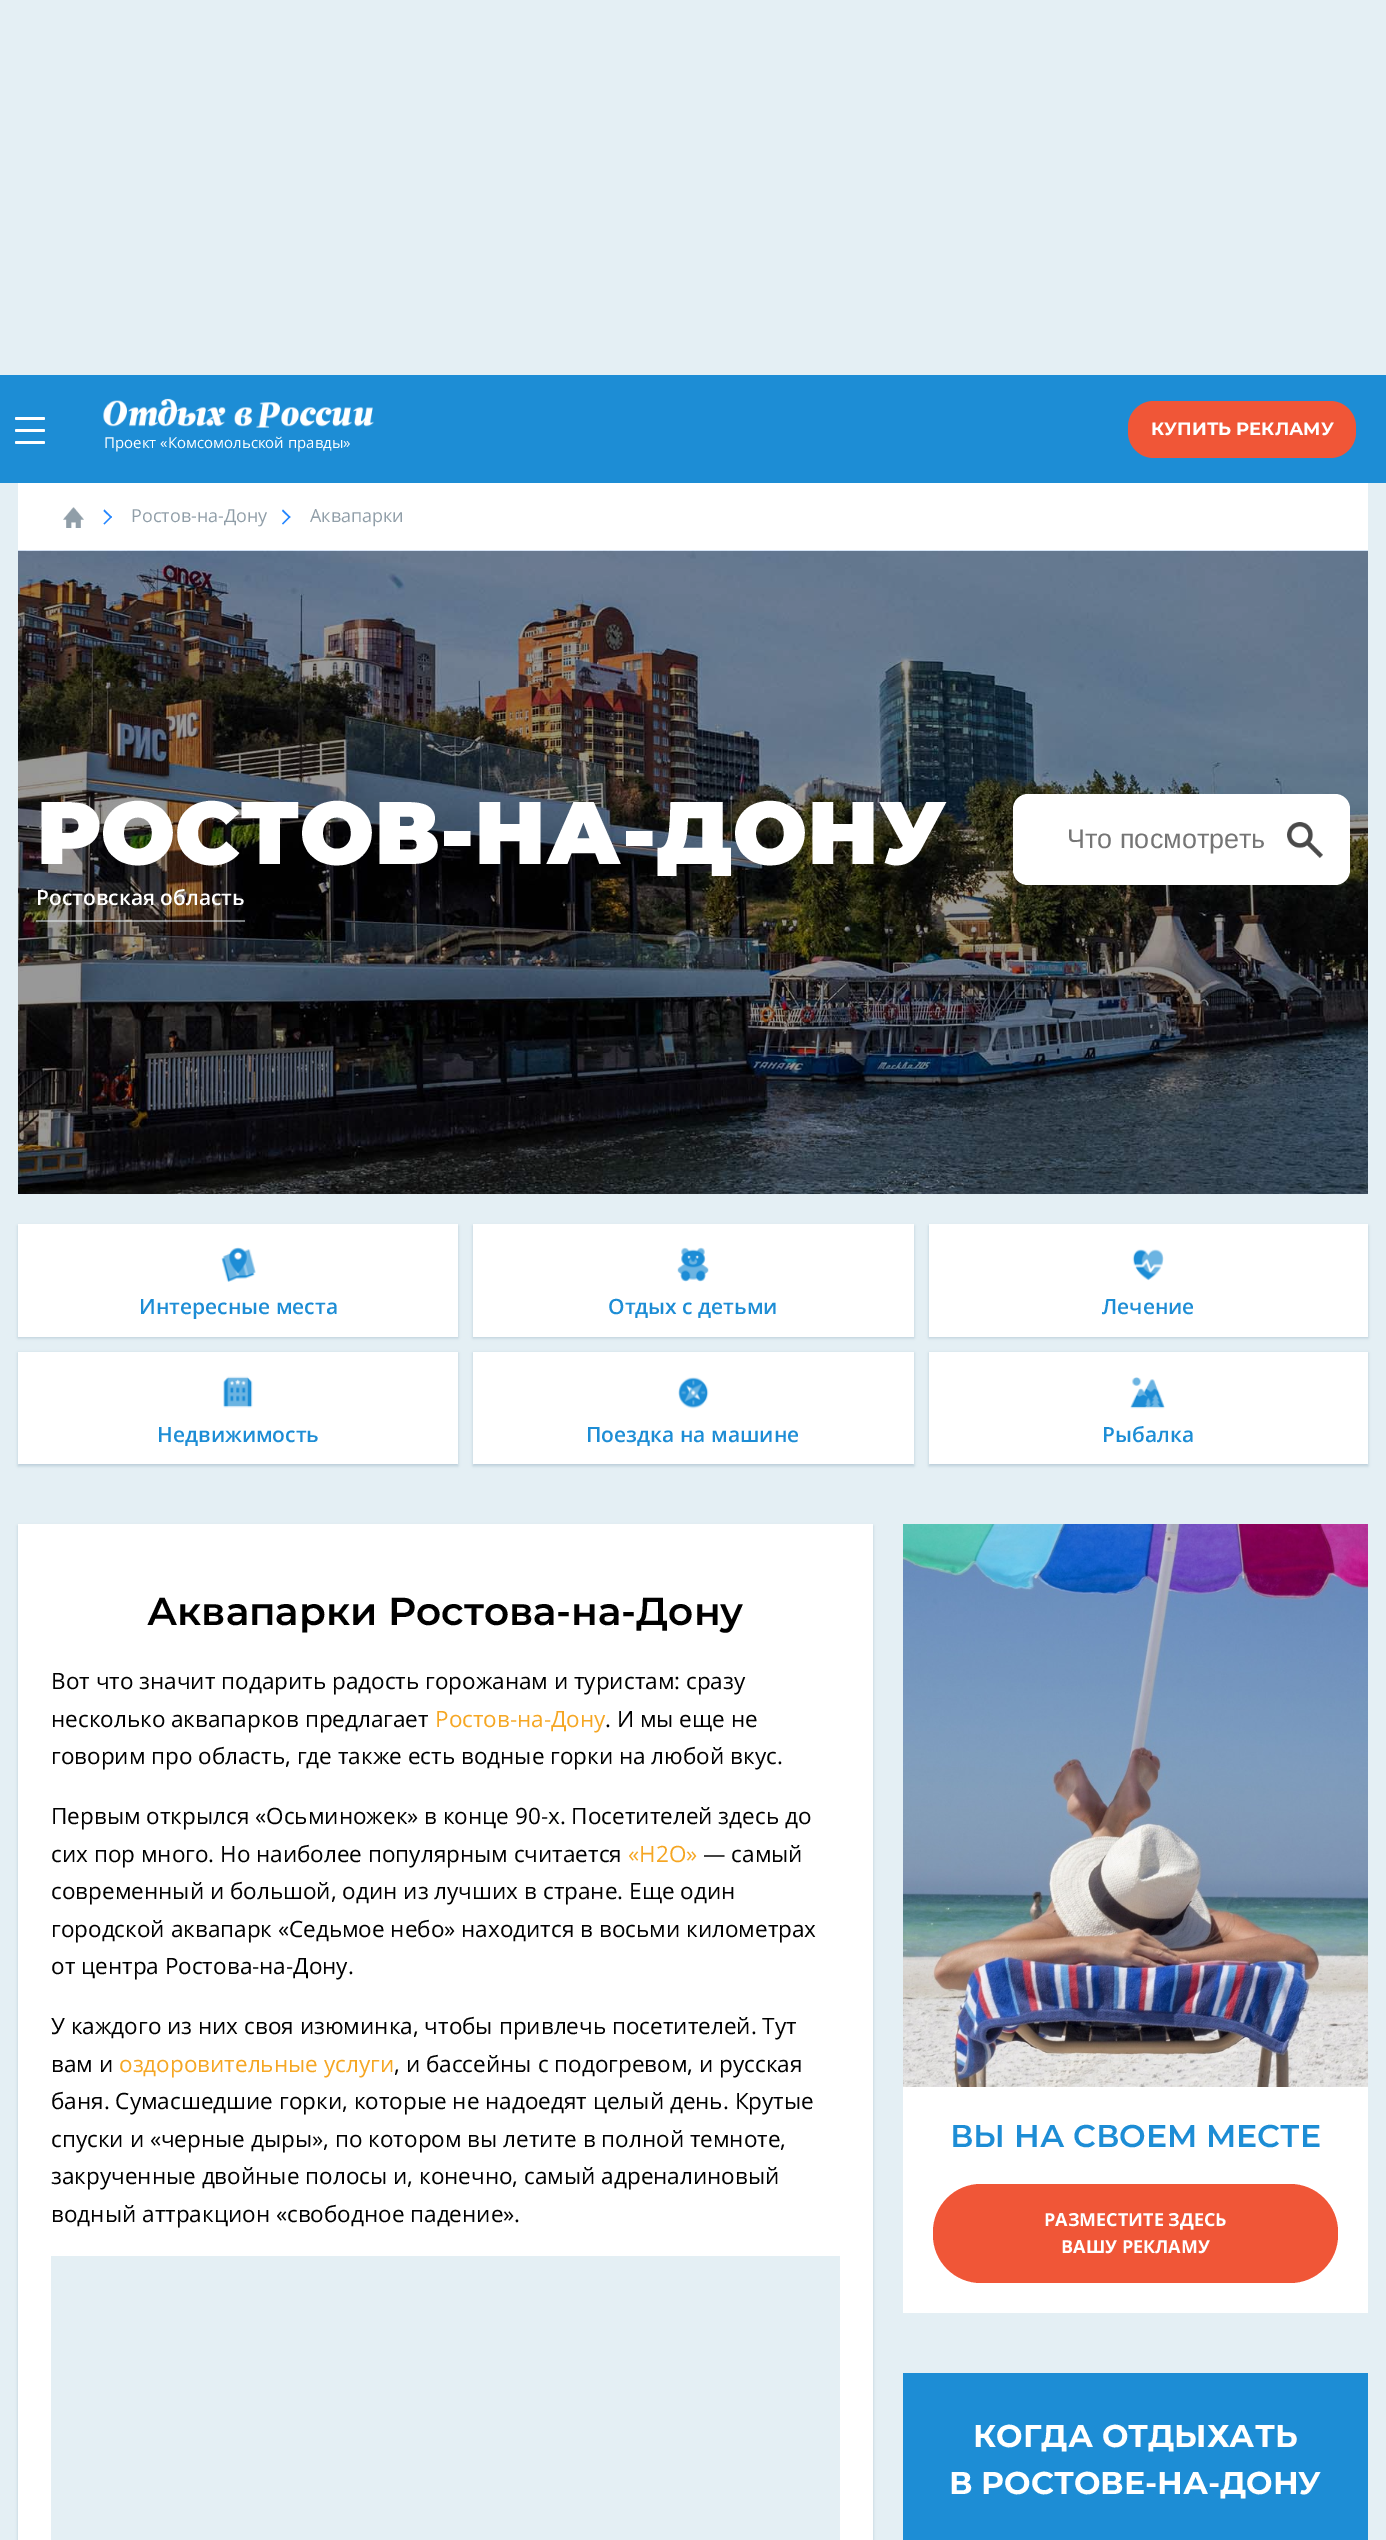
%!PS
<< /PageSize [1386 2540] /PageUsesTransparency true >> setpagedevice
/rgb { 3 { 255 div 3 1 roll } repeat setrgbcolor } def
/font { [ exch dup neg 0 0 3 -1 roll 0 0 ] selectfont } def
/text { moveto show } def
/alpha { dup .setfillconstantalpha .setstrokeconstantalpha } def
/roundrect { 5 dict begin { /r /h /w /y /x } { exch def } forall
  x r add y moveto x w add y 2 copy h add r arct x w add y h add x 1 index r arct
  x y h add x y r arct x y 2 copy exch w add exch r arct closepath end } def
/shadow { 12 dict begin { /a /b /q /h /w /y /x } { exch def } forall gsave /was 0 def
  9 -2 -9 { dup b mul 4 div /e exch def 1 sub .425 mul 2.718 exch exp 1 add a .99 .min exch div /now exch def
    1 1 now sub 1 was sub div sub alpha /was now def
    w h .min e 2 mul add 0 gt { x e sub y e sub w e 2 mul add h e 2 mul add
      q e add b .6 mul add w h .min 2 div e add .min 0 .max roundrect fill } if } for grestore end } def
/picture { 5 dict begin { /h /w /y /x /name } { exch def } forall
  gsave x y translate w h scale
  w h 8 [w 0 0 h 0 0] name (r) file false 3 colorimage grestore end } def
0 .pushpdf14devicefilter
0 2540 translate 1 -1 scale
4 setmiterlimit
228 239 244 rgb
0 0 1386 2540 rectfill
29 141 213 rgb
0 375 1386 108 rectfill
240 86 55 rgb
1128 401 228 57 26 roundrect fill
255 255 255 rgb
15 429 30 3 1.5 roundrect fill
15 417 30 3 1.5 roundrect fill
15 441 30 3 1.5 roundrect fill
(img_01.rgb) 103 398 271 30 picture
18 483 1350 68 rectfill
(img_02.rgb) 63 507 21 21 picture
35 133 255 rgb
104.5 509.5 moveto 7.5 7.5 rlineto -1 1 rlineto -7.5 -7 rlineto closepath fill
111 516 moveto 1 1 rlineto -7.5 7.5 rlineto -1 -1 rlineto closepath fill
283 509.5 moveto 7.5 7.5 rlineto -1 1 rlineto -7.5 -7 rlineto closepath fill
289.5 516 moveto 1 1 rlineto -7.5 7.5 rlineto -1 -1 rlineto closepath fill
(img_03.rgb) 18 550 1350 644 picture
0.51 alpha
230 239 243 rgb
36 920 209 2 rectfill
1 alpha
255 255 255 rgb
1013 794 337 91 15 roundrect fill
(img_04.rgb) 1287 822 36 36 picture
187 206 217 rgb
18 1226 440 112 0 1.5 1 shadow
255 255 255 rgb
18 1224 440 113 rectfill
(img_05.rgb) 221 1247 35 35 picture
187 206 217 rgb
473 1226 441 112 0 1.5 1 shadow
255 255 255 rgb
473 1224 441 113 rectfill
(img_06.rgb) 677 1247 32 35 picture
187 206 217 rgb
929 1226 439 112 0 1.5 1 shadow
255 255 255 rgb
929 1224 439 113 rectfill
(img_07.rgb) 1132 1249 32 32 picture
187 206 217 rgb
18 1353 440 113 0 1.5 1 shadow
255 255 255 rgb
18 1352 440 112 rectfill
(img_08.rgb) 223 1376 30 32 picture
187 206 217 rgb
473 1353 441 113 0 1.5 1 shadow
255 255 255 rgb
473 1352 441 112 rectfill
(img_09.rgb) 678 1377 31 32 picture
187 206 217 rgb
929 1353 439 113 0 1.5 1 shadow
255 255 255 rgb
929 1352 439 112 rectfill
(img_10.rgb) 1130 1377 35 32 picture
187 206 217 rgb
18 1526 855 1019 0 1.5 1 shadow
255 255 255 rgb
18 1524 855 1016 rectfill
228 239 244 rgb
51 2256 789 284 rectfill
255 255 255 rgb
903 2087 465 226 rectfill
(img_11.rgb) 903 1524 465 563 picture
240 86 55 rgb
933 2184 405 99 48 roundrect fill
29 141 213 rgb
903 2373 465 167 rectfill
/Montserrat-Bold 18 font
255 255 255 rgb
(КУПИТЬ РЕКЛАМУ) 1151 435 text
/OpenSans-Regular 15 font
(Проект «Комсомольской правды») 104 448 text
/OpenSans-Regular 18 font
144 158 168 rgb
(Ростов-на-Дону) 131 522 text
(Аквапарки) 310 522 text
/Montserrat-Black 88.5 font
255 255 255 rgb
(РОСТОВ-НА-ДОНУ) 36 864 text
/OpenSans-SemiBold 21 font
(Ростовская область) 36 905 text
/LiberationSans-Regular 27 font
117 117 117 rgb
(Что посмотреть) 1067 848 text
/OpenSans-SemiBold 21 font
29 141 213 rgb
(Интересные места) 139 1314 text
(Отдых с детьми) 608 1314 text
(Лечение) 1102 1314 text
(Недвижимость) 157 1442 text
(Поездка на машине) 586 1442 text
(Рыбалка) 1102 1442 text
/Montserrat-SemiBold 39 font
0 0 0 rgb
(Аквапарки Ростова-на-Дону) 147 1625 text
/OpenSans-Regular 22.5 font
(Вот что значит подарить радость горожанам и туристам: сразу) 51 1689 text
(несколько аквапарков предлагает) 51 1727 text
245 166 35 rgb
(Ростов-на-Дону) 435 1727 text
0 0 0 rgb
(. И мы еще не) 605 1727 text
(говорим про область, где также есть водные горки на любой вкус.) 51 1764 text
(Первым открылся «Осьминожек» в конце 90-х. Посетителей здесь до) 51 1824 text
(сих пор много. Но наиболее популярным считается) 51 1862 text
245 166 35 rgb
(«H2O») 628 1862 text
0 0 0 rgb
(— самый) 703 1862 text
(современный и большой, один из лучших в стране. Еще один) 51 1899 text
(городской аквапарк «Седьмое небо» находится в восьми километрах) 51 1937 text
(от центра Ростова-на-Дону.) 51 1974 text
(У каждого из них своя изюминка, чтобы привлечь посетителей. Тут) 51 2034 text
(вам и) 51 2072 text
245 166 35 rgb
(оздоровительные услуги) 119 2072 text
0 0 0 rgb
(, и бассейны с подогревом, и русская) 394 2072 text
(баня. Сумасшедшие горки, которые не надоедят целый день. Крутые) 51 2109 text
(спуски и «черные дыры», по котором вы летите в полной темноте,) 51 2147 text
(закрученные двойные полосы и, конечно, самый адреналиновый) 51 2184 text
(водный аттракцион «свободное падение».) 51 2222 text
/Montserrat-SemiBold 31.5 font
29 141 213 rgb
(ВЫ НА СВОЕМ МЕСТЕ) 950 2147 text
/OpenSans-Bold 18 font
255 255 255 rgb
(РАЗМЕСТИТЕ ЗДЕСЬ) 1044 2226 text
(ВАШУ РЕКЛАМУ) 1061 2253 text
/Montserrat-Bold 31.5 font
(КОГДА ОТДЫХАТЬ) 973 2447 text
(В РОСТОВЕ-НА-ДОНУ) 949 2494 text
.poppdf14devicefilter showpage
